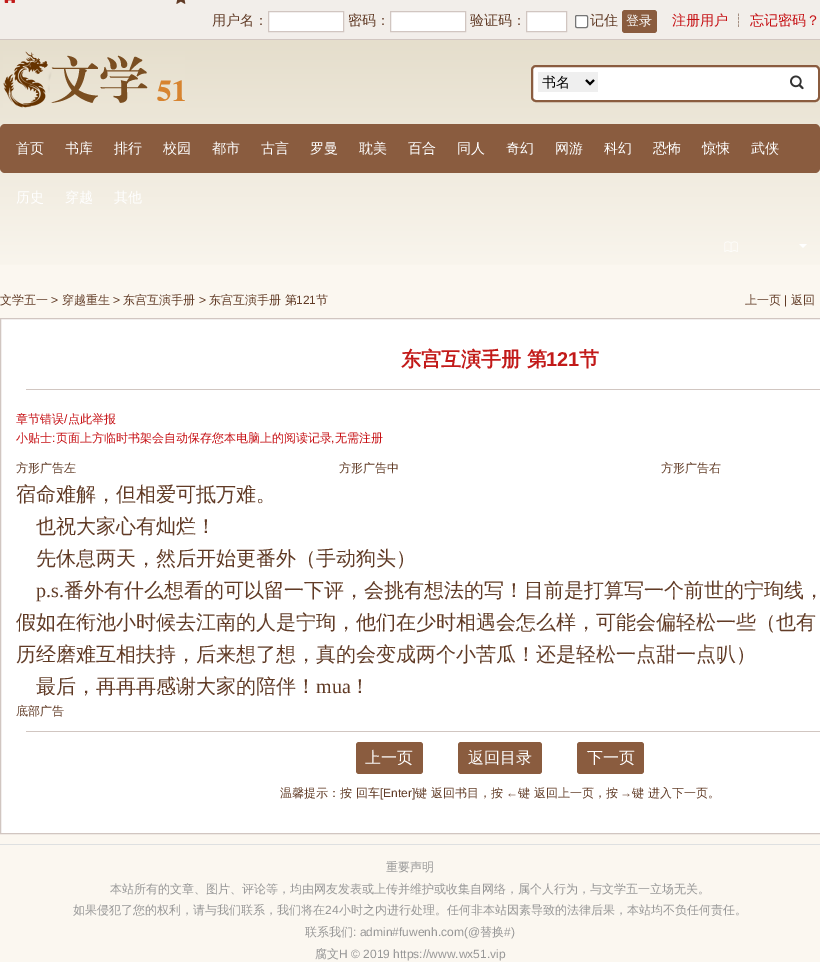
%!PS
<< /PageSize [820 962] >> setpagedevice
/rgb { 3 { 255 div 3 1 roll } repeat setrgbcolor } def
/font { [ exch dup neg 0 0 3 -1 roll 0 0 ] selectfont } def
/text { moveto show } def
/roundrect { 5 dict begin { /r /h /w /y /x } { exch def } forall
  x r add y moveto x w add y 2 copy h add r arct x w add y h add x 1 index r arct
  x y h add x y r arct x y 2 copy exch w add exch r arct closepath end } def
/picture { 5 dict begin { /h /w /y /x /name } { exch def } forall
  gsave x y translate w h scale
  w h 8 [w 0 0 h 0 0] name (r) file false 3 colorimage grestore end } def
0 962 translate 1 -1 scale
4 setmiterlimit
251 247 240 rgb
0 0 820 962 rectfill
242 238 234 rgb
0 0 820 39 rectfill
209 198 193 rgb
0 39 820 1 rectfill
(img_01.rgb) 4 0 11 3 picture
(img_02.rgb) 176 0 10 4 picture
255 255 255 rgb
268.5 11.5 moveto 75 0 rlineto 0 20 rlineto -75 0 rlineto closepath gsave fill grestore
209 198 193 rgb
stroke
255 255 255 rgb
390.5 11.5 moveto 75 0 rlineto 0 20 rlineto -75 0 rlineto closepath gsave fill grestore
209 198 193 rgb
stroke
255 255 255 rgb
526.5 11.5 moveto 40 0 rlineto 0 20 rlineto -40 0 rlineto closepath gsave fill grestore
209 198 193 rgb
stroke
255 255 255 rgb
575.5 15.5 12 12 1.5 roundrect gsave fill grestore
118 118 118 rgb
stroke
138 92 63 rgb
622 10 35 23 3 roundrect fill
gsave 0 40 moveto 820 0 rlineto 0 225 rlineto -820 0 rlineto closepath clip newpath
<< /ShadingType 2 /ColorSpace /DeviceRGB /Coords [410 40 410 282] /Extend [true true] /Function << /FunctionType 2 /Domain [0 1] /C0 [0.898 0.871 0.8] /C1 [0.984 0.969 0.941] /N 1 >> >> shfill grestore
(img_03.rgb) 3 51 182 57 picture
255 255 255 rgb
532 66 287 35 4 roundrect gsave fill grestore
138 92 63 rgb
2 setlinewidth
stroke
239 239 239 rgb
538 72 60 20 rectfill
0 0 0 rgb
586 80 moveto 4 4 rlineto 4 -4 rlineto stroke
(img_04.rgb) 790 75 14 15 picture
138 92 63 rgb
0 124 820 49 5 roundrect fill
(img_05.rgb) 724 241 14 11 picture
255 255 255 rgb
799 244 moveto 8 0 rlineto -4 4 rlineto closepath fill
0.5 318.5 moveto 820 0 rlineto 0 515 rlineto -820 0 rlineto closepath gsave fill grestore
209 198 193 rgb
1 setlinewidth
stroke
26 389 794 1 rectfill
26 731 794 1 rectfill
138 92 63 rgb
356 742 67 32 3 roundrect fill
458 742 84 32 3 roundrect fill
577 742 67 32 3 roundrect fill
222 224 225 rgb
0 844 820 1 rectfill
/WenQuanYiZenHei-Medium 14 font
97 59 38 rgb
(用户名：) 212 25 text
(密码：) 348 25 text
(验证码：) 470 25 text
(记住) 590 25 text
/WenQuanYiZenHei-Medium 13 font
255 255 255 rgb
(登录) 626 25 text
/WenQuanYiZenHei-Medium 14 font
198 15 19 rgb
(注册用户) 672 25 text
97 59 38 rgb
(┊) 732 25 text
198 15 19 rgb
(忘记密码？) 750 25 text
0 0 0 rgb
(书名) 542 87 text
255 255 255 rgb
(首页) 16 153 text
(书库) 65 153 text
(排行) 114 153 text
(校园) 163 153 text
(都市) 212 153 text
(古言) 261 153 text
(罗曼) 310 153 text
(耽美) 359 153 text
(百合) 408 153 text
(同人) 457 153 text
(奇幻) 506 153 text
(网游) 555 153 text
(科幻) 604 153 text
(恐怖) 653 153 text
(惊悚) 702 153 text
(武侠) 751 153 text
(历史) 16 202 text
(穿越) 65 202 text
(其他) 114 202 text
/WenQuanYiZenHei-Medium 12 font
97 59 38 rgb
(文学五一) 0 304 text
/LiberationSans-Regular 12 font
(>) 51 304 text
/WenQuanYiZenHei-Medium 12 font
(穿越重生) 62 304 text
/LiberationSans-Regular 12 font
(>) 113 304 text
/WenQuanYiZenHei-Medium 12 font
(东宫互演手册) 123 304 text
/LiberationSans-Regular 12 font
(>) 199 304 text
/WenQuanYiZenHei-Medium 12 font
(东宫互演手册 第) 209 304 text
/LiberationSans-Regular 12 font
(121) 296 304 text
/WenQuanYiZenHei-Medium 12 font
(节) 316 304 text
(上一页) 745 304 text
/LiberationSans-Regular 12 font
(|) 784 304 text
/WenQuanYiZenHei-Medium 12 font
(返回) 791 304 text
/WenQuanYiZenHei-Bold 20 font
194 26 25 rgb
(东宫互演手册 第) 401 366 text
/LiberationSans-Bold 20 font
(121) 546 366 text
/WenQuanYiZenHei-Bold 20 font
(节) 579 366 text
/WenQuanYiZenHei-Medium 12 font
198 15 19 rgb
(章节错误 点此举报) 16 423 text
/LiberationSans-Regular 12 font
(/) 64 423 text
/WenQuanYiZenHei-Medium 12 font
(小贴士 页面上方临时书架会自动保存您本电脑上的阅读记录 无需注册) 16 442 text
/LiberationSans-Regular 12 font
(:) 52 442 text
(,) 331 442 text
/WenQuanYiZenHei-Medium 12 font
97 59 38 rgb
(方形广告左) 16 472 text
(方形广告中) 339 472 text
(方形广告右) 661 472 text
/WenQuanYiZenHei-Medium 20 font
(宿命难解，但相爱可抵万难。) 16 501 text
(也祝大家心有灿烂！) 36 533 text
(先休息两天，然后开始更番外（手动狗头）) 36 565 text
/LiberationSerif-Regular 20 font
(p.s.) 36 597 text
/WenQuanYiZenHei-Medium 20 font
(番外有什么想看的可以留一下评，会挑有想法的写！目前是打算写一个前世的宁珣线，) 64 597 text
(假如在衔池小时候去江南的人是宁珣，他们在少时相遇会怎么样，可能会偏轻松一些（也有) 16 629 text
(历经磨难互相扶持，后来想了想，真的会变成两个小苦瓜！还是轻松一点甜一点叭）) 16 661 text
(最后，再再再感谢大家的陪伴！) 36 693 text
/LiberationSerif-Regular 20 font
(mua) 316 693 text
/WenQuanYiZenHei-Medium 20 font
(！) 350 693 text
/WenQuanYiZenHei-Medium 12 font
(底部广告) 16 715 text
/WenQuanYiZenHei-Medium 16 font
255 255 255 rgb
(上一页) 365 763 text
(返回目录) 468 763 text
(下一页) 587 763 text
/WenQuanYiZenHei-Medium 12 font
97 59 38 rgb
(温馨提示：按 回车) 280 797 text
/LiberationSans-Regular 12 font
([Enter]) 380 797 text
/WenQuanYiZenHei-Medium 12 font
(键 返回书目，按) 415 797 text
/LiberationSans-Regular 12 font
(←) 506 797 text
/WenQuanYiZenHei-Medium 12 font
(键 返回上一页，按) 518 797 text
/LiberationSans-Regular 12 font
(→) 620 797 text
/WenQuanYiZenHei-Medium 12 font
(键 进入下一页。) 632 797 text
151 151 151 rgb
(重要声明) 386 871 text
(本站所有的文章、图片、评论等，均由网友发表或上传并维护或收集自网络，属个人行为，与文学五一立场无关。) 110 893 text
(如果侵犯了您的权利，请与我们联系，我们将在) 73 914 text
/LiberationSans-Regular 12 font
(24) 325 914 text
/WenQuanYiZenHei-Medium 12 font
(小时之内进行处理。任何非本站因素导致的法律后果，本站均不负任何责任。) 339 914 text
(联系我们) 305 936 text
/LiberationSans-Regular 12 font
(: admin#fuwenh.com\(@) 353 936 text
/WenQuanYiZenHei-Medium 12 font
(替换) 480 936 text
/LiberationSans-Regular 12 font
(#\)) 504 936 text
/WenQuanYiZenHei-Medium 12 font
(腐文) 315 958 text
/LiberationSans-Regular 12 font
(H © 2019 https://www.wx51.vip) 339 958 text
showpage
